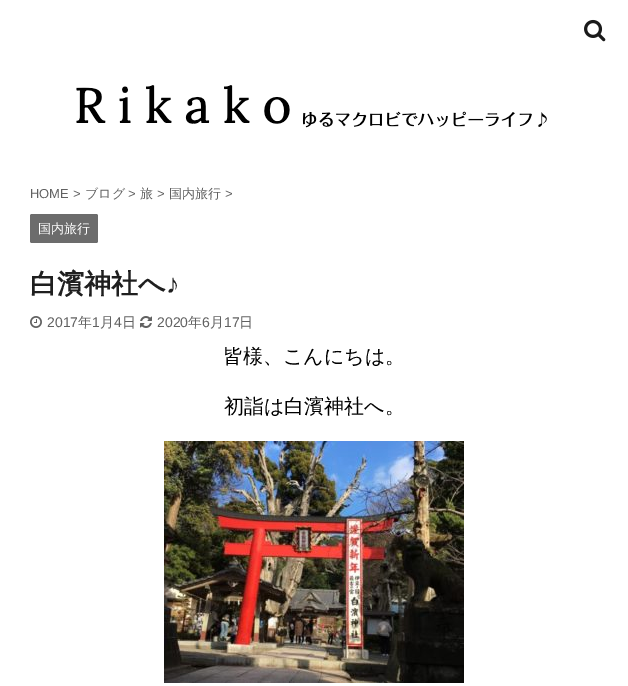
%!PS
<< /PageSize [628 686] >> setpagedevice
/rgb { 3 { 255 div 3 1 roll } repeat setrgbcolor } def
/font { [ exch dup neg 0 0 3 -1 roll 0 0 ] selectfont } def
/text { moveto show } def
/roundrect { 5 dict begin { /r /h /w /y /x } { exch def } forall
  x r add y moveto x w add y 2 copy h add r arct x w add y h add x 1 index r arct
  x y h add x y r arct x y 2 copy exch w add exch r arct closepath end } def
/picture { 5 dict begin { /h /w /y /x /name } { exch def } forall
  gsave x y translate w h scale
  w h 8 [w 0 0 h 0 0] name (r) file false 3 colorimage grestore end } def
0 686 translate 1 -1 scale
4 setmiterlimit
255 255 255 rgb
0 0 628 686 rectfill
(img_01.rgb) 584 19 22 23 picture
(img_02.rgb) 76 85 471 43 picture
108 108 108 rgb
30 214 68 29 2 roundrect fill
(img_03.rgb) 30 316 12 12 picture
(img_04.rgb) 140 316 12 12 picture
(img_05.rgb) 164 441 300 242 picture
/LiberationSans-Regular 13 font
97 97 97 rgb
(HOME >) 30 198 text
/WenQuanYiZenHei-Medium 13 font
(ブログ) 85 198 text
/LiberationSans-Regular 13 font
(>) 128 198 text
/WenQuanYiZenHei-Medium 13 font
(旅) 140 198 text
/LiberationSans-Regular 13 font
(>) 157 198 text
/WenQuanYiZenHei-Medium 13 font
(国内旅行) 169 198 text
/LiberationSans-Regular 13 font
(>) 225 198 text
/WenQuanYiZenHei-Medium 13 font
255 255 255 rgb
(国内旅行) 38 233 text
/WenQuanYiZenHei-Bold 27 font
31 31 31 rgb
(白濱神社へ) 30 293 text
/LiberationSerif-Bold 27 font
(♪) 166 293 text
/LiberationSans-Regular 14 font
97 97 97 rgb
(2017) 47 327 text
/WenQuanYiZenHei-Medium 14 font
(年) 78 327 text
/LiberationSans-Regular 14 font
(1) 92 327 text
/WenQuanYiZenHei-Medium 14 font
(月) 100 327 text
/LiberationSans-Regular 14 font
(4) 114 327 text
/WenQuanYiZenHei-Medium 14 font
(日) 122 327 text
/LiberationSans-Regular 14 font
(2020) 157 327 text
/WenQuanYiZenHei-Medium 14 font
(年) 188 327 text
/LiberationSans-Regular 14 font
(6) 202 327 text
/WenQuanYiZenHei-Medium 14 font
(月) 210 327 text
/LiberationSans-Regular 14 font
(17) 224 327 text
/WenQuanYiZenHei-Medium 14 font
(日) 239 327 text
/WenQuanYiZenHei-Medium 20 font
0 0 0 rgb
(皆様、こんにちは。) 223 363 text
(初詣は白濱神社へ。) 224 413 text
showpage
